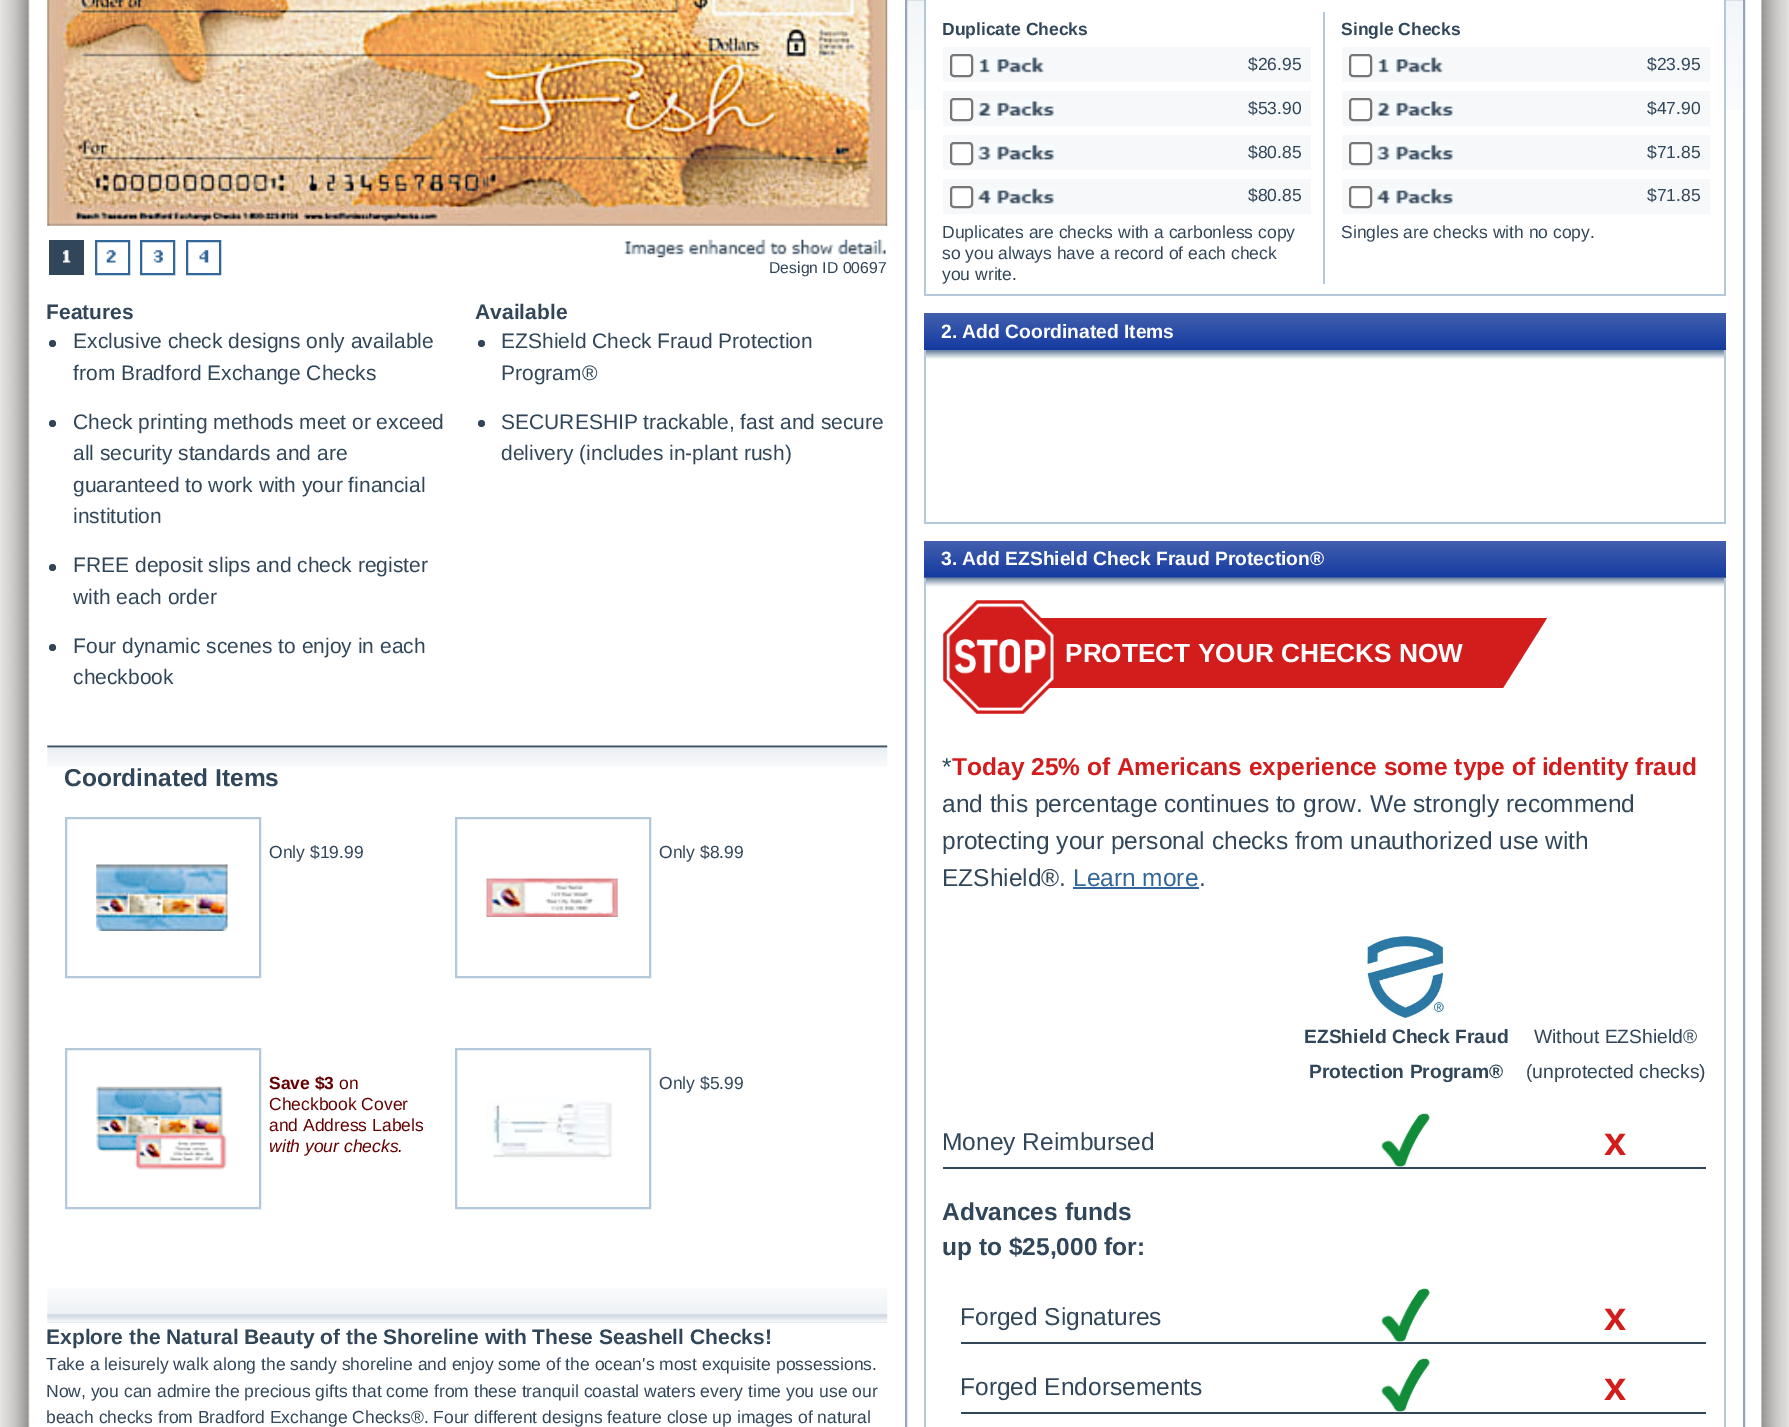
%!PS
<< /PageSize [1789 1427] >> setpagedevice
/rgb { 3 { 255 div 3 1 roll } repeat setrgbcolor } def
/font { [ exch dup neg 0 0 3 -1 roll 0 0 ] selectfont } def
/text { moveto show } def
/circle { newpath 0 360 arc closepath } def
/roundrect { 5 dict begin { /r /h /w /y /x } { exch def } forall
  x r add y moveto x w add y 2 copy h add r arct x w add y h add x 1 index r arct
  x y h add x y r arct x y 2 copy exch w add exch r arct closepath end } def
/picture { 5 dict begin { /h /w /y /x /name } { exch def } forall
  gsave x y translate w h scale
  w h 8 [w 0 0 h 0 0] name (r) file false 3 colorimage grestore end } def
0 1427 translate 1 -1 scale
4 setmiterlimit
229 227 225 rgb
0 0 1789 1427 rectfill
(img_01.rgb) 2 0 1786 1427 picture
(img_02.rgb) 47 0 841 226 picture
50 70 90 rgb
49 240 35 35 rectfill
(img_03.rgb) 63 250 8 13 picture
51 102 153 rgb
2 setlinewidth
96 241 33 33 rectstroke
(img_04.rgb) 106 250 10 13 picture
141 241 33 33 rectstroke
(img_05.rgb) 153 250 10 13 picture
187 241 33 33 rectstroke
(img_06.rgb) 199 250 10 13 picture
(img_07.rgb) 624 239 262 19 picture
50 70 90 rgb
52.5 343.5 3.5 circle fill
52.5 423.5 3.5 circle fill
52.5 567.5 3.5 circle fill
52.5 647.5 3.5 circle fill
481.5 343.5 3.5 circle fill
481.5 423.5 3.5 circle fill
(img_08.rgb) 47 745 841 22 picture
180 200 220 rgb
66 818 194 159 rectstroke
(img_09.rgb) 96 864 132 67 picture
456 818 194 159 rectstroke
(img_10.rgb) 486 878 132 39 picture
66 1049 194 159 rectstroke
(img_11.rgb) 96 1086 131 84 picture
456 1049 194 159 rectstroke
(img_12.rgb) 486 1098 127 62 picture
(img_13.rgb) 47 1288 841 35 picture
(img_14.rgb) 907 0 836 110 picture
151 166 185 rgb
906 -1 838 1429 rectstroke
255 255 255 rgb
926 0 798 110 rectfill
180 200 220 rgb
1724 0 2 296 rectfill
924 294 802 2 rectfill
924 0 2 296 rectfill
246 248 250 rgb
943 47 368 35 rectfill
255 255 255 rgb
951 55 21 21 3 roundrect gsave fill grestore
118 118 118 rgb
stroke
(img_15.rgb) 979 57 65 16 picture
246 248 250 rgb
943 91 368 35 rectfill
255 255 255 rgb
951 99 21 21 3 roundrect gsave fill grestore
118 118 118 rgb
stroke
(img_16.rgb) 978 101 76 15 picture
246 248 250 rgb
943 135 368 35 rectfill
255 255 255 rgb
951 143 21 21 3 roundrect gsave fill grestore
118 118 118 rgb
stroke
(img_17.rgb) 978 144 76 16 picture
246 248 250 rgb
943 179 368 35 rectfill
255 255 255 rgb
951 187 21 20 3 roundrect gsave fill grestore
118 118 118 rgb
stroke
(img_18.rgb) 978 188 76 16 picture
180 200 220 rgb
1323 12 2 272 rectfill
246 248 250 rgb
1342 47 368 35 rectfill
255 255 255 rgb
1350 55 21 21 3 roundrect gsave fill grestore
118 118 118 rgb
stroke
(img_15.rgb) 1378 57 65 16 picture
246 248 250 rgb
1342 91 368 35 rectfill
255 255 255 rgb
1350 99 21 21 3 roundrect gsave fill grestore
118 118 118 rgb
stroke
(img_16.rgb) 1377 101 76 15 picture
246 248 250 rgb
1342 135 368 35 rectfill
255 255 255 rgb
1350 143 21 21 3 roundrect gsave fill grestore
118 118 118 rgb
stroke
(img_17.rgb) 1377 144 76 16 picture
246 248 250 rgb
1342 179 368 35 rectfill
255 255 255 rgb
1350 187 21 20 3 roundrect gsave fill grestore
118 118 118 rgb
stroke
(img_18.rgb) 1377 188 76 16 picture
gsave 924 313 moveto 802 0 rlineto 0 37 rlineto -802 0 rlineto closepath clip newpath
<< /ShadingType 2 /ColorSpace /DeviceRGB /Coords [1325 313 1325 350] /Extend [true true] /Function << /FunctionType 2 /Domain [0 1] /C0 [0.263 0.376 0.682] /C1 [0.078 0.227 0.631] /N 1 >> >> shfill grestore
(img_19.rgb) 926 350 798 9 picture
180 200 220 rgb
1724 350 2 173 rectfill
924 522 802 2 rectfill
924 350 2 173 rectfill
gsave 924 541 moveto 802 0 rlineto 0 37 rlineto -802 0 rlineto closepath clip newpath
<< /ShadingType 2 /ColorSpace /DeviceRGB /Coords [1325 541 1325 578] /Extend [true true] /Function << /FunctionType 2 /Domain [0 1] /C0 [0.263 0.376 0.682] /C1 [0.078 0.227 0.631] /N 1 >> >> shfill grestore
(img_20.rgb) 924 577 802 10 picture
1724 578 2 849 rectfill
924 578 2 849 rectfill
211 28 28 rgb
978 618 moveto 569 0 rlineto -44 70 rlineto -525 0 rlineto closepath fill
(img_21.rgb) 943 600 111 114 picture
51 102 153 rgb
1073 887 126 2 rectfill
(img_22.rgb) 1366 936 78 83 picture
(img_23.rgb) 1381 1113 49 54 picture
50 70 90 rgb
943 1167 763 2 rectfill
(img_23.rgb) 1381 1288 49 54 picture
961 1342 745 2 rectfill
(img_23.rgb) 1381 1358 49 54 picture
961 1412 745 2 rectfill
/LiberationSans-Regular 15.75 font
(Design ID 00697) 769 273 text
/LiberationSans-Bold 21 font
(Features) 46 319 text
/LiberationSans-Regular 21 font
(Exclusive check designs only available) 73 348 text
(from Bradford Exchange Checks) 73 380 text
(Check printing methods meet or exceed) 73 429 text
(all security standards and are) 73 460 text
(guaranteed to work with your financial) 73 492 text
(institution) 73 523 text
(FREE deposit slips and check register) 73 572 text
(with each order) 73 604 text
(Four dynamic scenes to enjoy in each) 73 653 text
(checkbook) 73 684 text
/LiberationSans-Bold 21 font
(Available) 475 319 text
/LiberationSans-Regular 21 font
(EZShield Check Fraud Protection) 501 348 text
(Program®) 501 380 text
(SECURESHIP trackable, fast and secure) 501 429 text
(delivery \(includes in-plant rush\)) 501 460 text
/LiberationSans-Bold 24.5 font
(Coordinated Items) 64 786 text
/LiberationSans-Regular 17.5 font
(Only $19.99) 269 858 text
(Only $8.99) 659 858 text
/LiberationSans-Bold 17.5 font
102 0 0 rgb
(Save $3) 269 1089 text
/LiberationSans-Regular 17.5 font
(on) 339 1089 text
(Checkbook Cover) 269 1110 text
(and Address Labels) 269 1131 text
/LiberationSans-Italic 17.5 font
(with your checks.) 269 1152 text
/LiberationSans-Regular 17.5 font
50 70 90 rgb
(Only $5.99) 659 1089 text
/LiberationSans-Bold 21 font
(Explore the Natural Beauty of the Shoreline with These Seashell Checks!) 46 1344 text
/LiberationSans-Regular 17.5 font
(Take a leisurely walk along the sandy shoreline and enjoy some of the ocean's most exquisite possessions.) 46 1370 text
(Now, you can admire the precious gifts that come from these tranquil coastal waters every time you use our) 46 1397 text
(beach checks from Bradford Exchange Checks®. Four different designs feature close up images of natural) 46 1423 text
/LiberationSans-Bold 17.5 font
(Duplicate Checks) 942 35 text
/LiberationSans-Regular 17.5 font
($26.95) 1248 70 text
($53.90) 1248 114 text
($80.85) 1248 158 text
($80.85) 1248 201 text
(Duplicates are checks with a carbonless copy) 942 238 text
(so you always have a record of each check) 942 259 text
(you write.) 942 280 text
/LiberationSans-Bold 17.5 font
(Single Checks) 1341 35 text
/LiberationSans-Regular 17.5 font
($23.95) 1647 70 text
($47.90) 1647 114 text
($71.85) 1647 158 text
($71.85) 1647 201 text
(Singles are checks with no copy.) 1341 238 text
/LiberationSans-Bold 19.25 font
255 255 255 rgb
(2. Add Coordinated Items) 941 338 text
(3. Add EZShield Check Fraud Protection®) 941 565 text
/LiberationSans-Bold 26.25 font
(PROTECT YOUR CHECKS NOW) 1065 662 text
/LiberationSans-Regular 24.5 font
50 70 90 rgb
(*) 942 775 text
/LiberationSans-Bold 24.5 font
211 28 28 rgb
(Today 25% of Americans experience some type of identity fraud) 952 775 text
/LiberationSans-Regular 24.5 font
50 70 90 rgb
(and this percentage continues to grow. We strongly recommend) 942 812 text
(protecting your personal checks from unauthorized use with) 942 849 text
(EZShield®.) 942 886 text
51 102 153 rgb
(Learn more) 1073 886 text
50 70 90 rgb
(.) 1199 886 text
/LiberationSans-Bold 19.25 font
(EZShield Check Fraud) 1304 1043 text
(Protection Program®) 1309 1078 text
/LiberationSans-Regular 19.25 font
(Without EZShield®) 1534 1043 text
(\(unprotected checks\)) 1526 1078 text
/LiberationSans-Regular 24.5 font
(Money Reimbursed) 942 1150 text
/LiberationSans-Bold 40 font
211 28 28 rgb
(x) 1604 1155 text
/LiberationSans-Bold 24.5 font
50 70 90 rgb
(Advances funds) 942 1220 text
(up to $25,000 for:) 942 1255 text
/LiberationSans-Regular 24.5 font
(Forged Signatures) 960 1325 text
/LiberationSans-Bold 40 font
211 28 28 rgb
(x) 1604 1330 text
/LiberationSans-Regular 24.5 font
50 70 90 rgb
(Forged Endorsements) 960 1395 text
/LiberationSans-Bold 40 font
211 28 28 rgb
(x) 1604 1400 text
showpage
